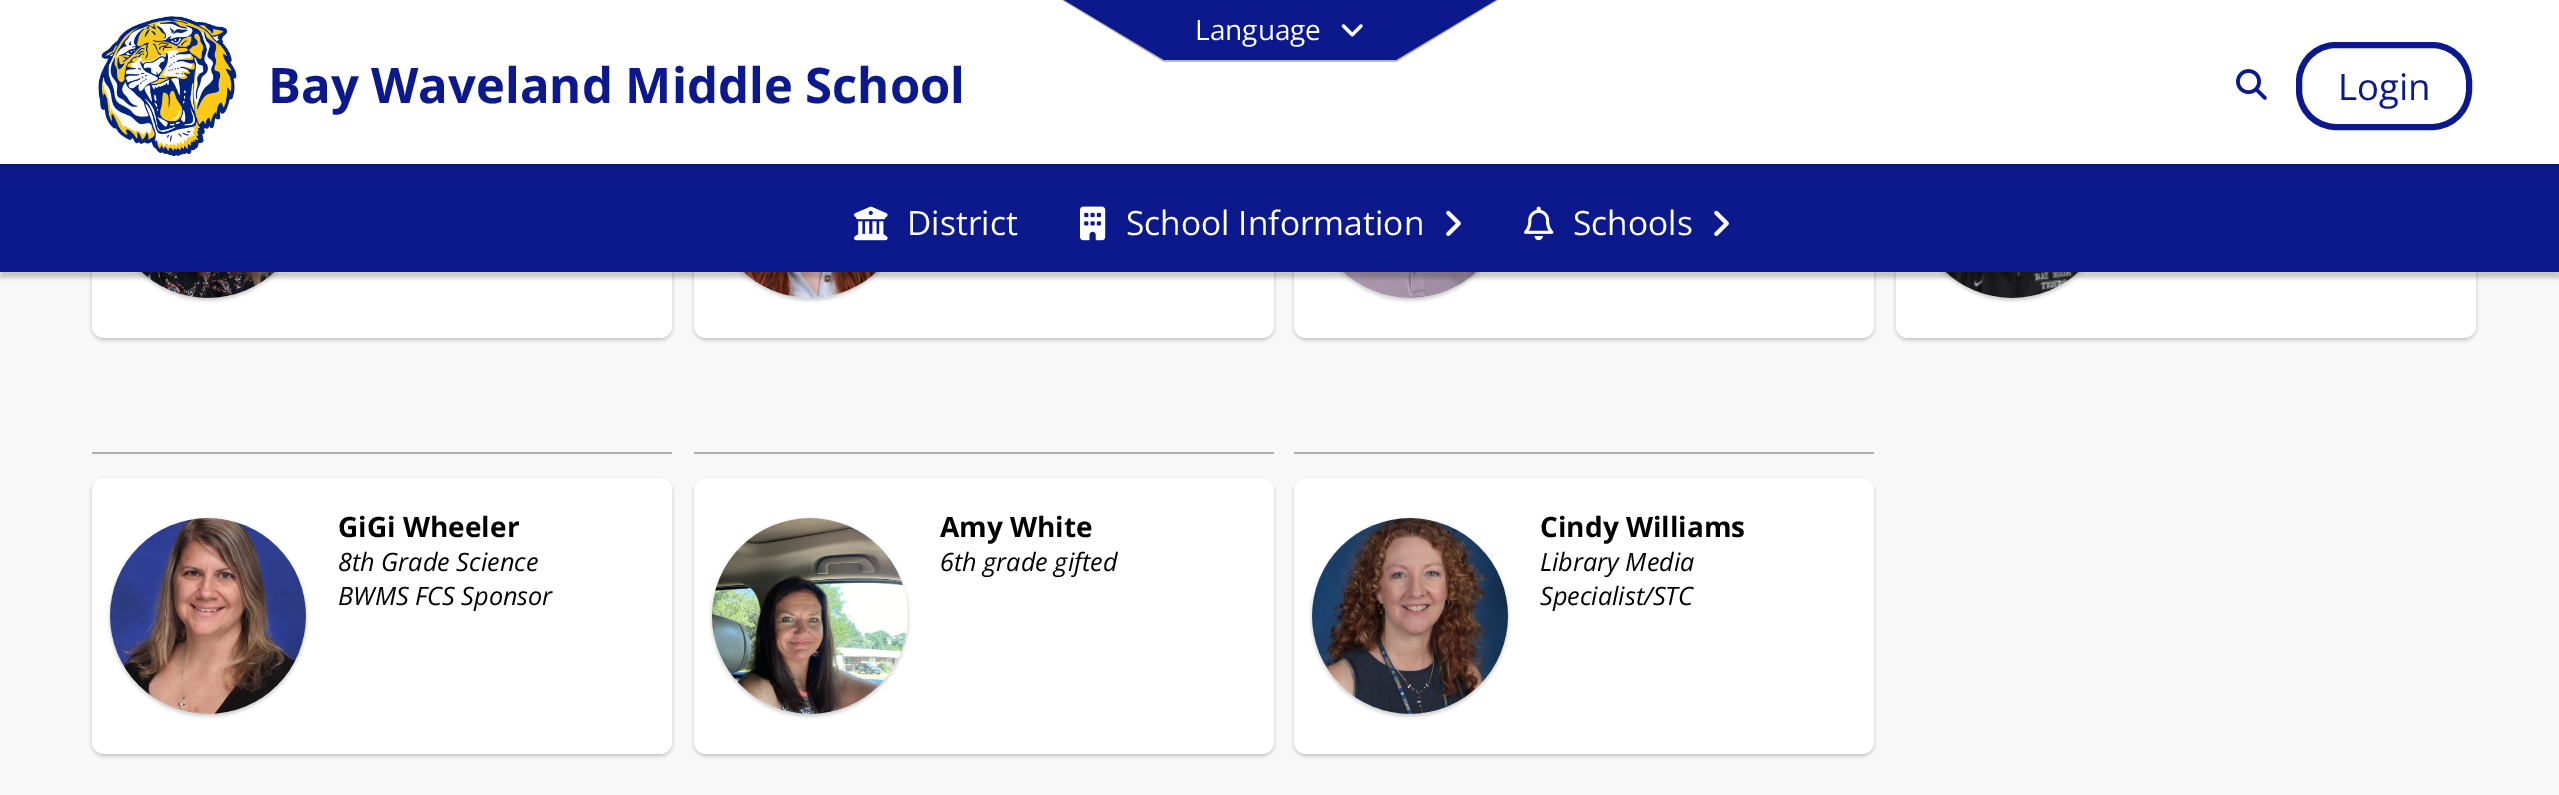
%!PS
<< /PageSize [2559 795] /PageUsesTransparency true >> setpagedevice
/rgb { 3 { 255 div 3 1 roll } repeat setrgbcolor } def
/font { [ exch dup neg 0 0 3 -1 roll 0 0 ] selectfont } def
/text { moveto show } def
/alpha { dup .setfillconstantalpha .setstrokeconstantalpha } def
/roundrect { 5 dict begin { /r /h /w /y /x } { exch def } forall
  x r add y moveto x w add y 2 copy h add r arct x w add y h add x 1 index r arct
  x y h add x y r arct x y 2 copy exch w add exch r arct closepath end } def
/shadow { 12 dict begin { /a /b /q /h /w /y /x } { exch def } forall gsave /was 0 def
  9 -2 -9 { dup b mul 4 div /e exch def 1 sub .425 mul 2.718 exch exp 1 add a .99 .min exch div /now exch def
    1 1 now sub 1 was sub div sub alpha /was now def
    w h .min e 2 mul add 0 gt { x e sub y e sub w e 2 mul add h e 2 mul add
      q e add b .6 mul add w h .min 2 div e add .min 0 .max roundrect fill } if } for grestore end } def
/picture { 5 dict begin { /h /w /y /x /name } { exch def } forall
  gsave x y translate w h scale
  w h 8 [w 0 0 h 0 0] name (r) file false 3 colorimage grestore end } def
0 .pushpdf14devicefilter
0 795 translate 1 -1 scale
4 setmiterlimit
248 248 248 rgb
0 0 2559 795 rectfill
0 0 0 rgb
92 64 580 276 12 2 0.22 shadow
255 255 255 rgb
92 62 580 276 12 roundrect fill
0 0 0 rgb
110 104 196 196 98 2 0.22 shadow
(img_08.rgb) 141 272 134 26 picture
694 64 580 276 12 2 0.22 shadow
255 255 255 rgb
694 62 580 276 12 roundrect fill
0 0 0 rgb
712 104 196 196 98 2 0.22 shadow
(img_09.rgb) 743 272 134 26 picture
1294 64 580 276 12 2 0.22 shadow
255 255 255 rgb
1294 62 580 276 12 roundrect fill
0 0 0 rgb
1312 104 196 196 98 2 0.22 shadow
(img_10.rgb) 1343 272 134 26 picture
1896 64 580 276 12 2 0.22 shadow
255 255 255 rgb
1896 62 580 276 12 roundrect fill
0 0 0 rgb
1914 104 196 196 98 2 0.22 shadow
(img_11.rgb) 1945 272 134 26 picture
0 170 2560 108 0 2 0.2 shadow
11 22 121 rgb
0 164 2559 2 rectfill
12 25 140 rgb
0 168 2559 104 rectfill
12 24 134 rgb
0 166 2559 2 rectfill
0 0 0 rgb
0 4 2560 164 0 2 0.1 shadow
255 255 255 rgb
0 0 2559 164 rectfill
183 183 183 rgb
1062 0 moveto 102 62 rlineto 232 0 rlineto 102 -62 rlineto closepath fill
12 25 140 rgb
1064 0 moveto 100 60 rlineto 232 0 rlineto 100 -60 rlineto closepath fill
(img_01.rgb) 1341 24 22 13 picture
(img_02.rgb) 98 16 139 140 picture
(img_03.rgb) 2236 69 31 31 picture
6 setlinewidth
2299 45 170 82 37 roundrect stroke
(img_04.rgb) 854 206 34 35 picture
(img_05.rgb) 1080 206 26 35 picture
(img_06.rgb) 1446 210 15 26 picture
(img_07.rgb) 1524 206 30 35 picture
(img_06.rgb) 1714 210 15 26 picture
0 0 0 rgb
92 480 580 276 12 2 0.22 shadow
255 255 255 rgb
92 478 580 276 12 roundrect fill
174 174 174 rgb
92 452 580 2 rectfill
0 0 0 rgb
110 520 196 196 98 2 0.22 shadow
(img_12.rgb) 110 518 196 196 picture
694 480 580 276 12 2 0.22 shadow
255 255 255 rgb
694 478 580 276 12 roundrect fill
174 174 174 rgb
694 452 580 2 rectfill
0 0 0 rgb
712 520 196 196 98 2 0.22 shadow
(img_13.rgb) 712 518 196 196 picture
1294 480 580 276 12 2 0.22 shadow
255 255 255 rgb
1294 478 580 276 12 roundrect fill
174 174 174 rgb
1294 452 580 2 rectfill
0 0 0 rgb
1312 520 196 196 98 2 0.22 shadow
(img_14.rgb) 1312 518 196 196 picture
/OpenSans-Regular 28 font
255 255 255 rgb
(Language) 1195 40 text
/OpenSans-Bold 49 font
12 25 140 rgb
(Bay Waveland Middle School) 268 103 text
/OpenSans-Regular 36.5 font
(Login) 2338 100 text
/OpenSans-Regular 33.5 font
255 255 255 rgb
(District) 907 235 text
(School Information) 1126 235 text
(Schools) 1573 235 text
/OpenSans-Bold 28 font
0 0 0 rgb
(GiGi Wheeler) 338 537 text
/OpenSans-Italic 25.25 font
(8th Grade Science) 338 571 text
(BWMS FCS Sponsor) 338 605 text
/OpenSans-Bold 28 font
(Amy White) 940 537 text
/OpenSans-Italic 25.25 font
(6th grade gifted) 940 571 text
/OpenSans-Bold 28 font
(Cindy Williams) 1540 537 text
/OpenSans-Italic 25.25 font
(Library Media) 1540 571 text
(Specialist/STC) 1540 605 text
.poppdf14devicefilter showpage
